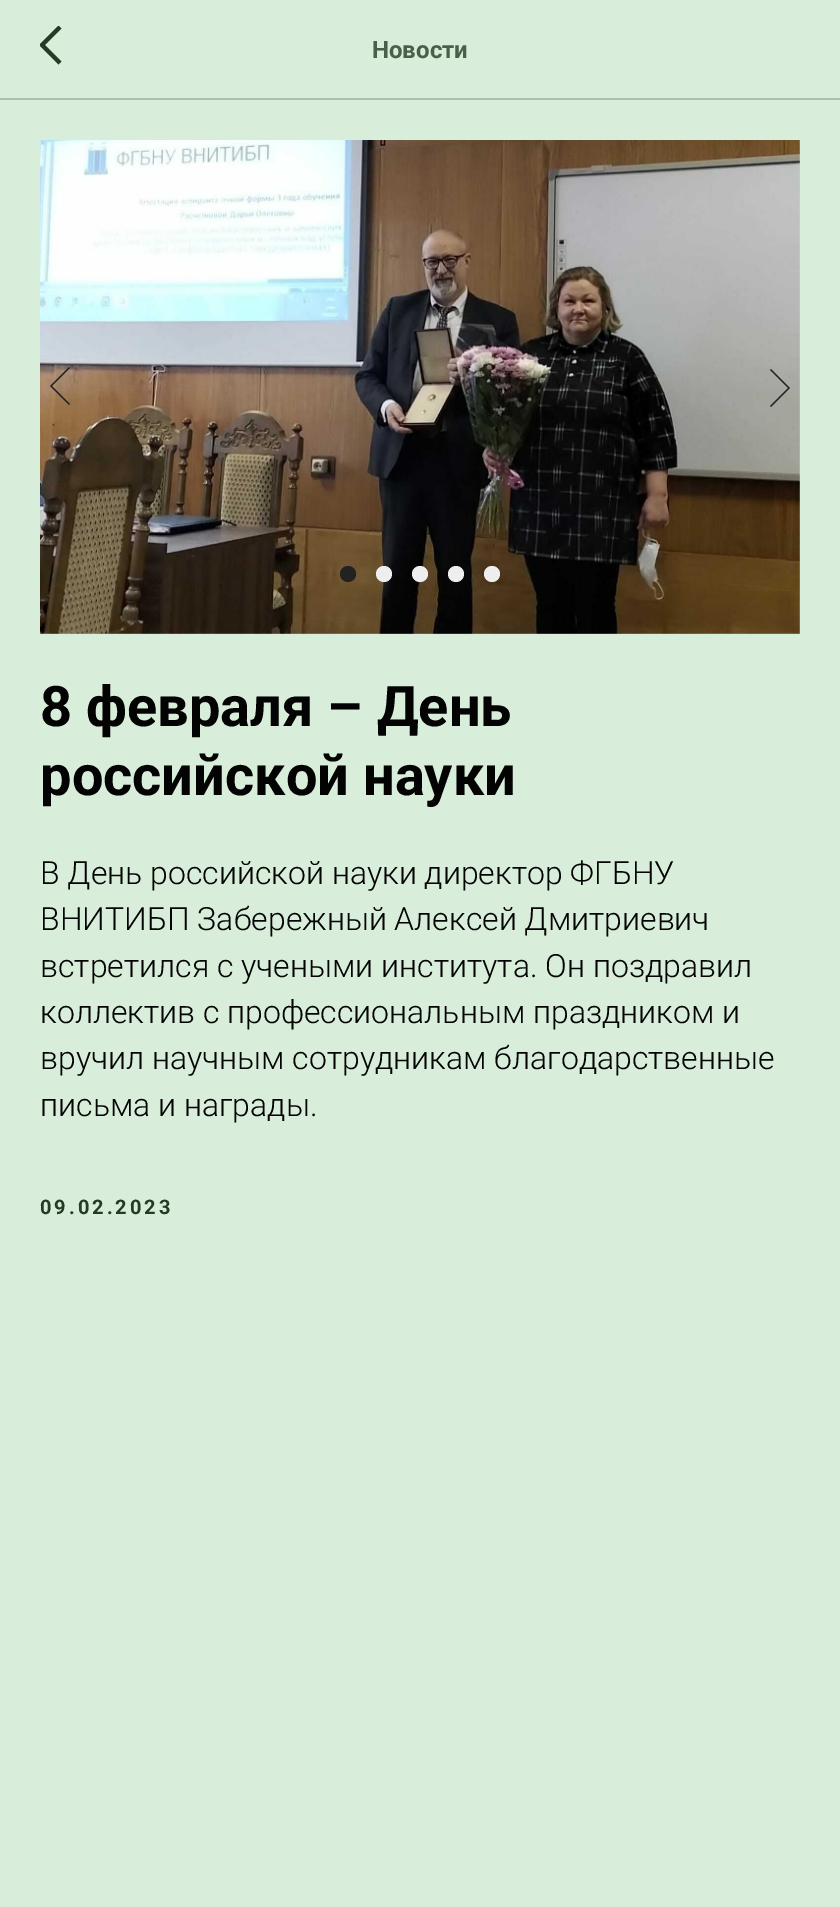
%!PS
<< /PageSize [840 1907] >> setpagedevice
/rgb { 3 { 255 div 3 1 roll } repeat setrgbcolor } def
/font { [ exch dup neg 0 0 3 -1 roll 0 0 ] selectfont } def
/text { moveto show } def
/circle { newpath 0 360 arc closepath } def
/picture { 5 dict begin { /h /w /y /x /name } { exch def } forall
  gsave x y translate w h scale
  w h 8 [w 0 0 h 0 0] name (r) file false 3 colorimage grestore end } def
0 1907 translate 1 -1 scale
4 setmiterlimit
216 237 218 rgb
0 0 840 1907 rectfill
173 190 174 rgb
0 98 840 2 rectfill
gsave
40 26 22 40 rectclip
38 59 37 rgb
4 setlinewidth
60 63 moveto -18 -18 rlineto 18 -18 rlineto stroke
grestore
(img_01.rgb) 40 140 760 494 picture
34 34 34 rgb
1.2 setlinewidth
69.5 404.5 moveto -18.5 -18.5 rlineto 18.5 -18.5 rlineto stroke
770.5 369.5 moveto 18.5 18.5 rlineto -18.5 18.5 rlineto stroke
348 574 8 circle fill
238 238 238 rgb
384 574 8 circle fill
420 574 8 circle fill
456 574 8 circle fill
492 574 8 circle fill
/Roboto-Bold 24 font
74 95 73 rgb
(Новости) 372 58 text
/Roboto-Bold 56 font
3 3 3 rgb
(8 февраля – День) 40 726 text
(российской науки) 40 795 text
/Roboto-Light 32 font
(В День российской науки директор ФГБНУ) 40 884 text
(ВНИТИБП Забережный Алексей Дмитриевич) 40 930 text
(встретился с учеными института. Он поздравил) 40 977 text
(коллектив с профессиональным праздником и) 40 1023 text
(вручил научным сотрудникам благодарственные) 40 1069 text
(письма и награды.) 40 1116 text
/Roboto-Bold 20 font
38 59 37 rgb
40 1214 moveto 3 0 (09.02.2023) ashow
showpage
